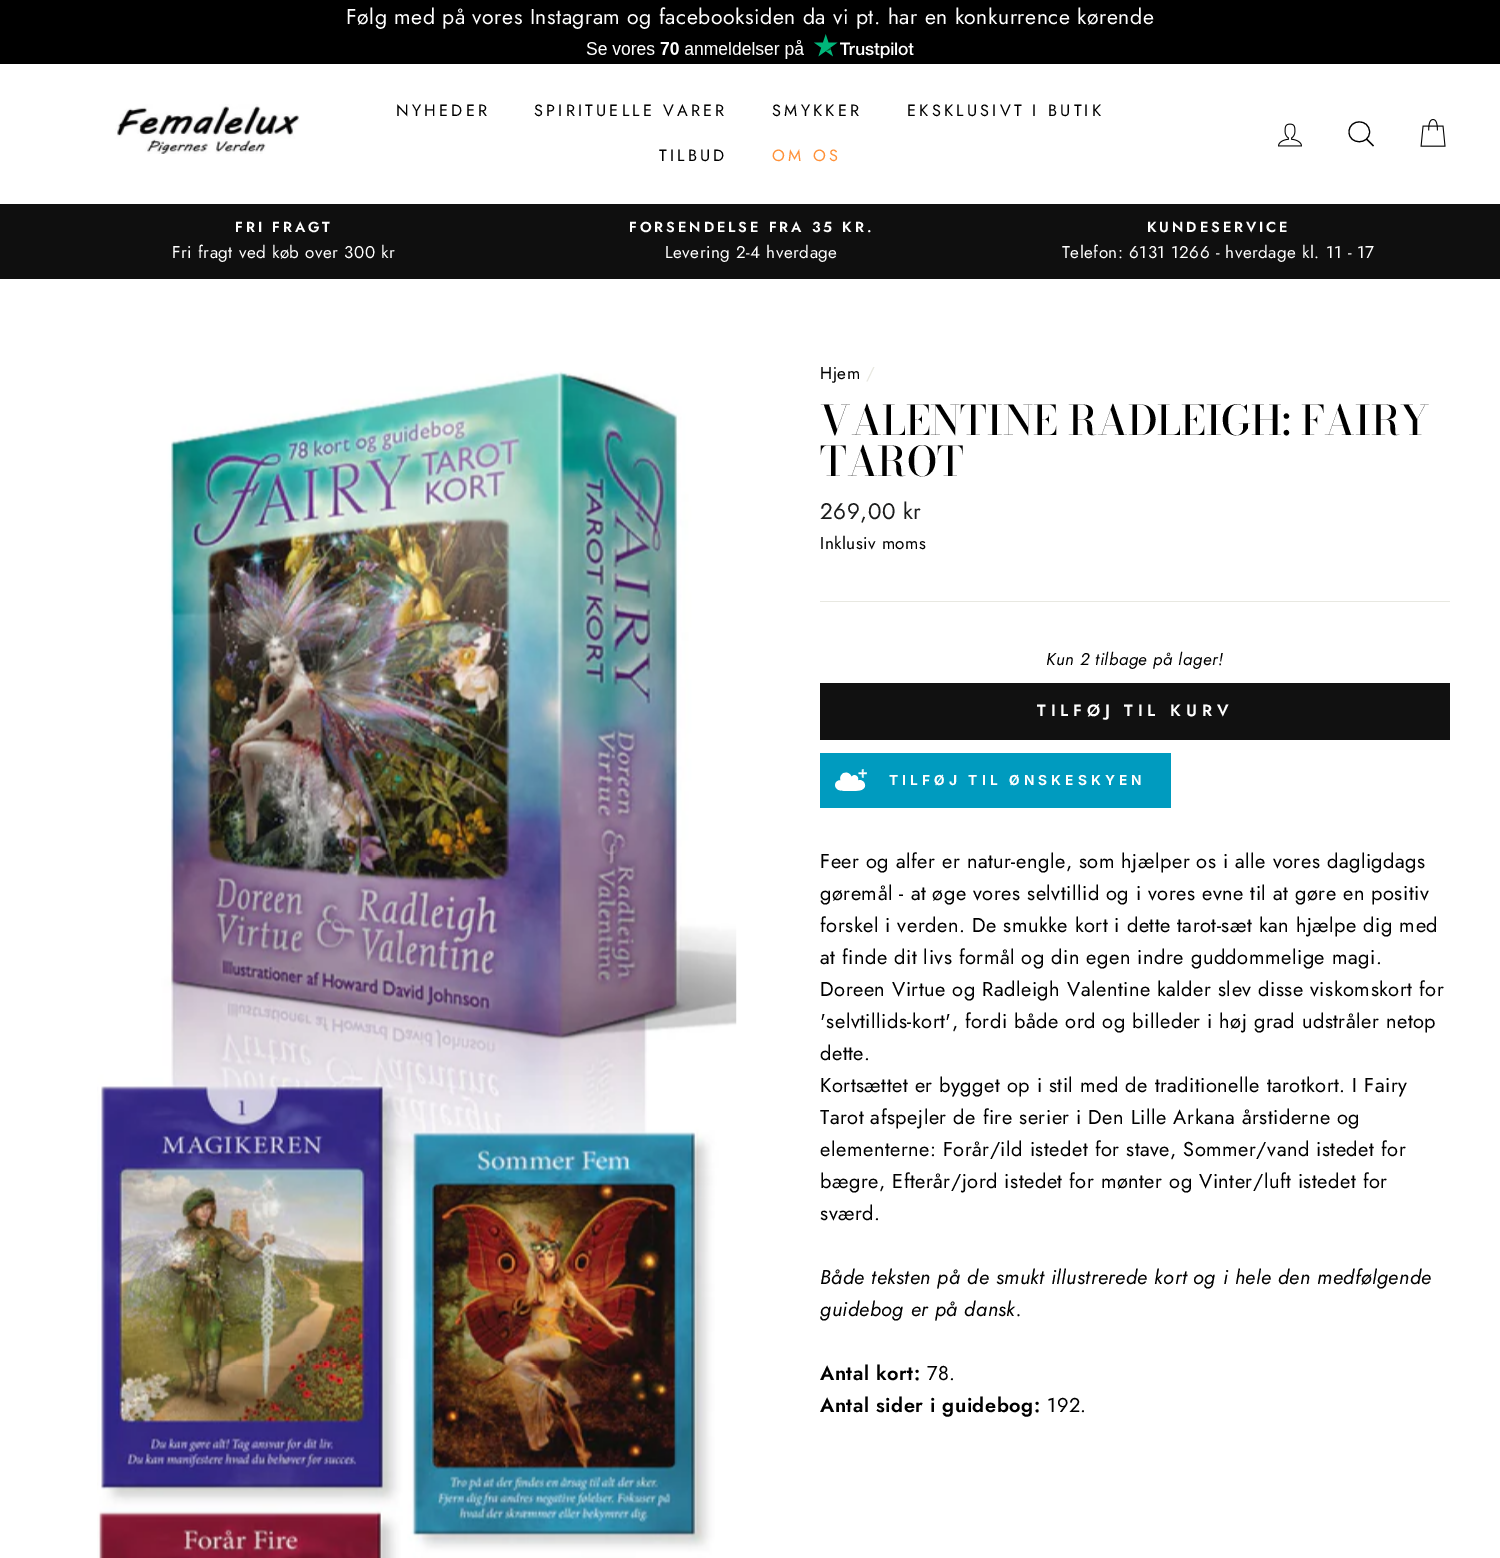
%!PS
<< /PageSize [1500 1558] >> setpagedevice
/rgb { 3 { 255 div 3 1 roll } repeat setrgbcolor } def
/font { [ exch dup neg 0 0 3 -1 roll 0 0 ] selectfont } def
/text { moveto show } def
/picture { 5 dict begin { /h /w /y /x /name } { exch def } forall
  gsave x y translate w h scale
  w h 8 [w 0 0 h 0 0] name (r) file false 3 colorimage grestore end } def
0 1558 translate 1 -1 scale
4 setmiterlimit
255 255 255 rgb
0 0 1500 1558 rectfill
0 0 0 rgb
0 0 1500 64 rectfill
(img_01.rgb) 586 34 328 25 picture
(img_02.rgb) 115 104 185 50 picture
(img_03.rgb) 1278 123 24 24 picture
1.1 setlinewidth
1369.5 132 moveto 0 13 -20.5 13 -20.5 0 rcurveto 0 -13.5 20.5 -13.5 20.5 0 rcurveto closepath 1373.5 146 moveto -7 -7 rlineto stroke
(img_04.rgb) 1420 119 26 28 picture
15 15 15 rgb
0 204 1500 75 rectfill
(img_05.rgb) 97 371 640 1187 picture
232 232 225 rgb
820 601 630 1 rectfill
17 17 17 rgb
820 683 630 57 rectfill
0 155 191 rgb
820 753 351 55 rectfill
(img_06.rgb) 835 769 32 22 picture
/Jost-Regular 21.25 font
255 255 255 rgb
346 24 moveto 0.5 0 (Følg med på vores Instagram og facebooksiden da vi pt. har en konkurrence kørende) ashow
/Jost-Regular 16.25 font
0 0 0 rgb
396 116 moveto 3.25 0 (NYHEDER) ashow
534 116 moveto 3.25 0 (SPIRITUELLE VARER) ashow
772 116 moveto 3.25 0 (SMYKKER) ashow
907 116 moveto 3.25 0 (EKSKLUSIVT I BUTIK) ashow
659 161 moveto 3.25 0 (TILBUD) ashow
255 145 56 rgb
772 161 moveto 3.25 0 (OM OS) ashow
/Jost-SemiBold 14.5 font
255 255 255 rgb
235 232 moveto 2.9 0 (FRI FRAGT) ashow
/Jost-Regular 17 font
172 258 moveto 0.5 0 (Fri fragt ved køb over 300 kr) ashow
/Jost-SemiBold 14.5 font
629 232 moveto 2.9 0 (FORSENDELSE FRA 35 KR.) ashow
/Jost-Regular 17 font
665 258 moveto 0.5 0 (Levering 2-4 hverdage) ashow
/Jost-SemiBold 14.5 font
1147 232 moveto 2.9 0 (KUNDESERVICE) ashow
/Jost-Regular 17 font
1062 258 moveto 0.5 0 (Telefon: 6131 1266 - hverdage kl. 11 - 17) ashow
0 0 0 rgb
820 379 moveto 0.5 0 (Hjem) ashow
232 232 225 rgb
866 379 moveto 0.5 0 (/) ashow
/BodoniModa-Medium 40.8 font
0 0 0 rgb
(VALENTINE RADLEIGH: FAIRY) 820 435 text
(TAROT) 820 476 text
/Jost-Regular 22.5 font
28 29 29 rgb
820 519 moveto 0.5 0 (269,00 kr) ashow
/Jost-Regular 17 font
0 0 0 rgb
820 549 moveto 0.5 0 (Inklusiv moms) ashow
/Jost-Italic 17 font
1046 665 moveto 0.5 0 (Kun 2 tilbage på lager!) ashow
/Jost-SemiBold 16.25 font
255 255 255 rgb
1037 716 moveto 4.9 0 (TILFØJ TIL KURV) ashow
/Inter-Bold 13.75 font
889 785 moveto 4.1 0 (TILFØJ TIL ØNSKESKYEN) ashow
/Jost-Regular 20 font
0 0 0 rgb
820 868 moveto 0.5 0 (Feer og alfer er natur-engle, som hjælper os i alle vores dagligdags) ashow
820 900 moveto 0.5 0 (gøremål - at øge vores selvtillid og i vores evne til at gøre en positiv) ashow
820 932 moveto 0.5 0 (forskel i verden. De smukke kort i dette tarot-sæt kan hjælpe dig med) ashow
820 964 moveto 0.5 0 (at finde dit livs formål og din egen indre guddommelige magi.) ashow
820 996 moveto 0.5 0 (Doreen Virtue og Radleigh Valentine kalder slev disse viskomskort for) ashow
820 1028 moveto 0.5 0 ('selvtillids-kort', fordi både ord og billeder i høj grad udstråler netop) ashow
820 1060 moveto 0.5 0 (dette.) ashow
820 1092 moveto 0.5 0 (Kortsættet er bygget op i stil med de traditionelle tarotkort. I Fairy) ashow
820 1124 moveto 0.5 0 (Tarot afspejler de fire serier i Den Lille Arkana årstiderne og) ashow
820 1156 moveto 0.5 0 (elementerne: Forår/ild istedet for stave, Sommer/vand istedet for) ashow
820 1188 moveto 0.5 0 (bægre, Efterår/jord istedet for mønter og Vinter/luft istedet for) ashow
820 1220 moveto 0.5 0 (sværd.) ashow
/Jost-Italic 20 font
820 1284 moveto 0.5 0 (Både teksten på de smukt illustrerede kort og i hele den medfølgende) ashow
820 1316 moveto 0.5 0 (guidebog er på dansk.) ashow
/Jost-SemiBold 20 font
820 1380 moveto 0.5 0 (Antal kort:) ashow
/Jost-Regular 20 font
927 1380 moveto 0.5 0 (78.) ashow
/Jost-SemiBold 20 font
820 1412 moveto 0.5 0 (Antal sider i guidebog:) ashow
/Jost-Regular 20 font
1047 1412 moveto 0.5 0 (192.) ashow
showpage
